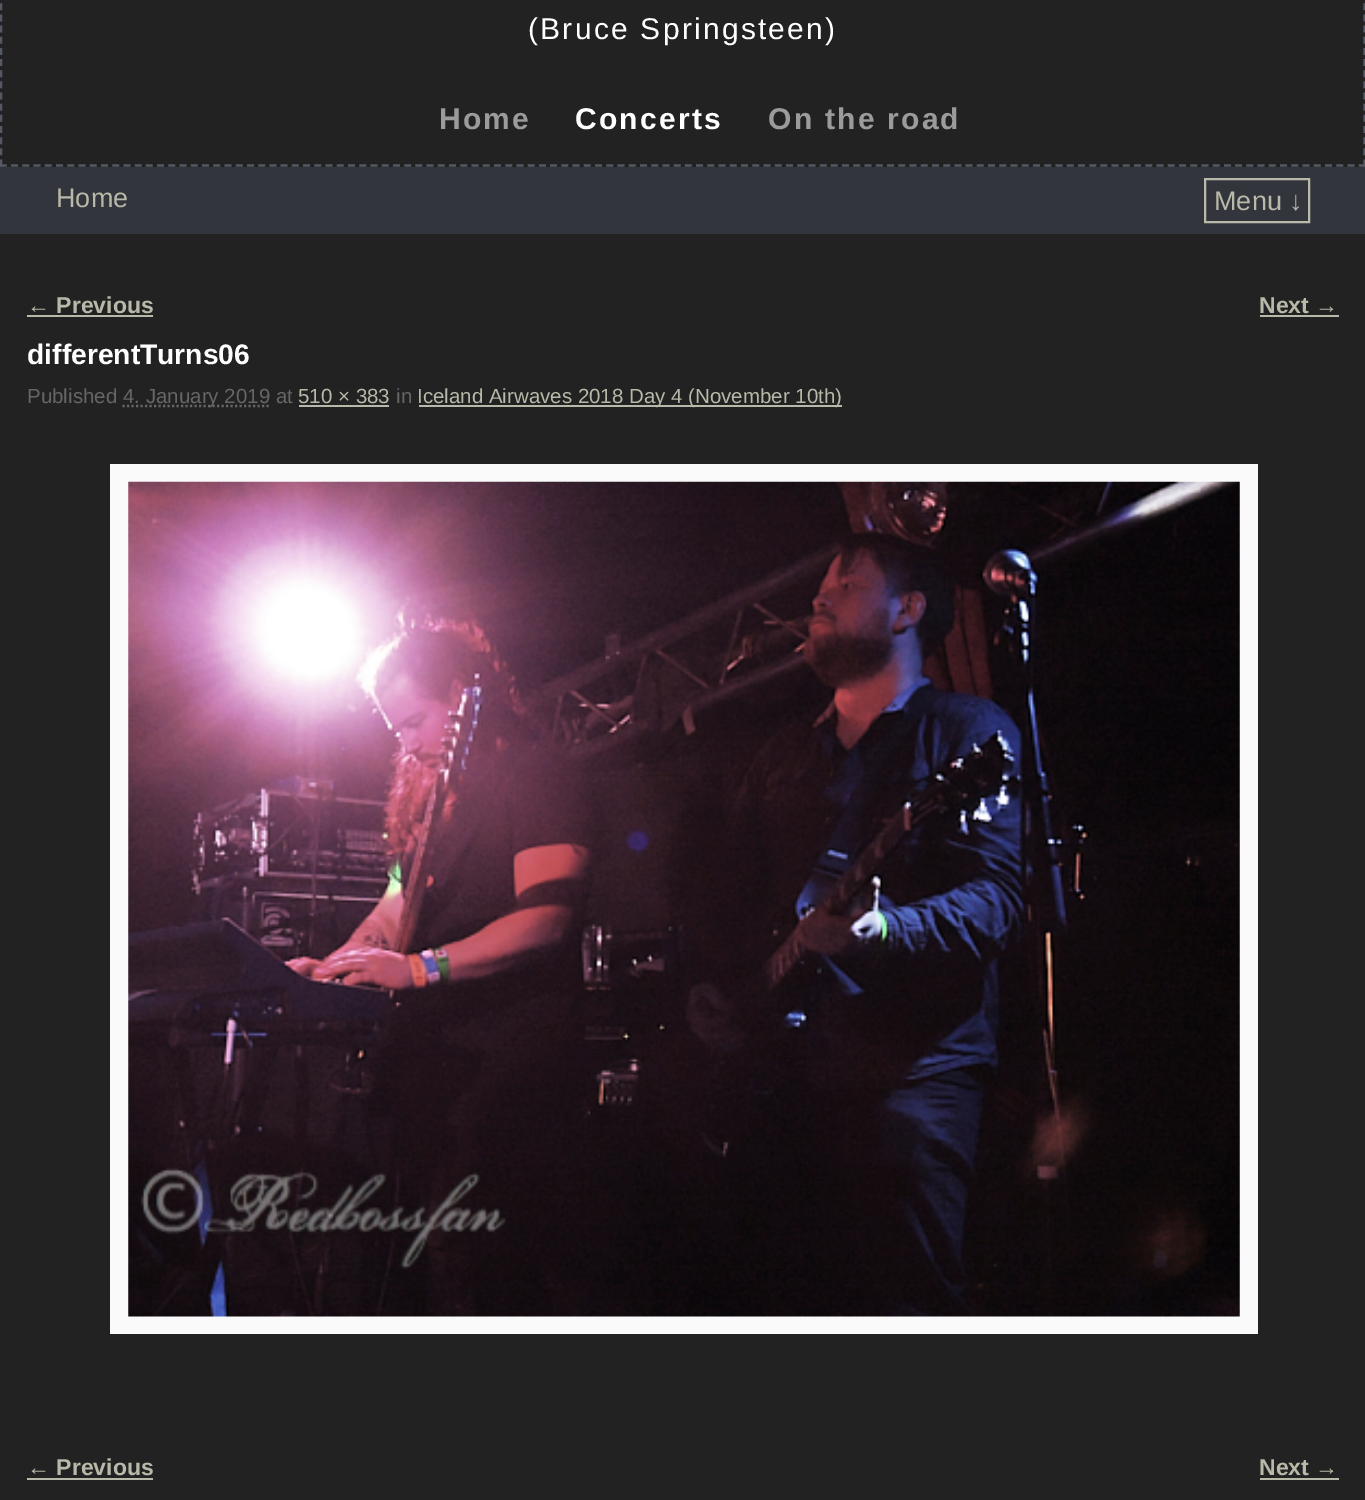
%!PS
<< /PageSize [1365 1500] >> setpagedevice
/rgb { 3 { 255 div 3 1 roll } repeat setrgbcolor } def
/font { [ exch dup neg 0 0 3 -1 roll 0 0 ] selectfont } def
/text { moveto show } def
/picture { 5 dict begin { /h /w /y /x /name } { exch def } forall
  gsave x y translate w h scale
  w h 8 [w 0 0 h 0 0] name (r) file false 3 colorimage grestore end } def
0 1500 translate 1 -1 scale
4 setmiterlimit
51 53 61 rgb
0 0 1365 1500 rectfill
34 34 34 rgb
0 0 1365 167 rectfill
85 89 100 rgb
2.2 setlinewidth
[6.75 4.41] 0 setdash
1364.5 -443 moveto 0 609.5 rlineto stroke
[6.75 4.48] 0 setdash
0 165.5 moveto 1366 0 rlineto stroke
[6.75 4.41] 0 setdash
1 -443 moveto 0 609.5 rlineto stroke
185 185 169 rgb
2 setlinewidth
[] 0 setdash
1205 179 104 43 rectstroke
34 34 34 rgb
0 234 1365 1266 rectfill
185 185 169 rgb
27 315 126 2 rectfill
1260 315 79 2 rectfill
102 102 102 rgb
2.2 setlinewidth
[2.25 2.25] 0 setdash
122.5 406 moveto 147.5 0 rlineto stroke
185 185 169 rgb
299 405 90 2 rectfill
419 405 423 2 rectfill
250 250 250 rgb
110 464 1148 870 rectfill
(img_01.rgb) 128 481 1112 836 picture
185 185 169 rgb
27 1478 126 2 rectfill
1260 1478 79 2 rectfill
/LiberationSans-Regular 30 font
255 255 255 rgb
528 39 moveto 2.25 0 (\(Bruce Springsteen\)) ashow
/LiberationSans-Bold 30 font
155 155 155 rgb
439 129 moveto 2.25 0 (Home) ashow
255 255 255 rgb
575 129 moveto 2.25 0 (Concerts) ashow
155 155 155 rgb
768 129 moveto 2.25 0 (On the road) ashow
/LiberationSans-Regular 27 font
185 185 169 rgb
(Home) 56 207 text
(Menu ↓) 1214 210 text
/LiberationSans-Bold 23 font
(← Previous) 27 313 text
(Next →) 1259 313 text
/LiberationSans-Bold 28.25 font
255 255 255 rgb
(differentTurns06) 27 364 text
/LiberationSans-Regular 20.5 font
102 102 102 rgb
(Published) 27 403 text
(4. January 2019 at) 123 403 text
185 185 169 rgb
(510 × 383) 298 403 text
102 102 102 rgb
(in) 396 403 text
185 185 169 rgb
(Iceland Airwaves 2018 Day 4 \(November 10th\)) 417 403 text
/LiberationSans-Bold 23 font
(← Previous) 27 1475 text
(Next →) 1259 1475 text
showpage
